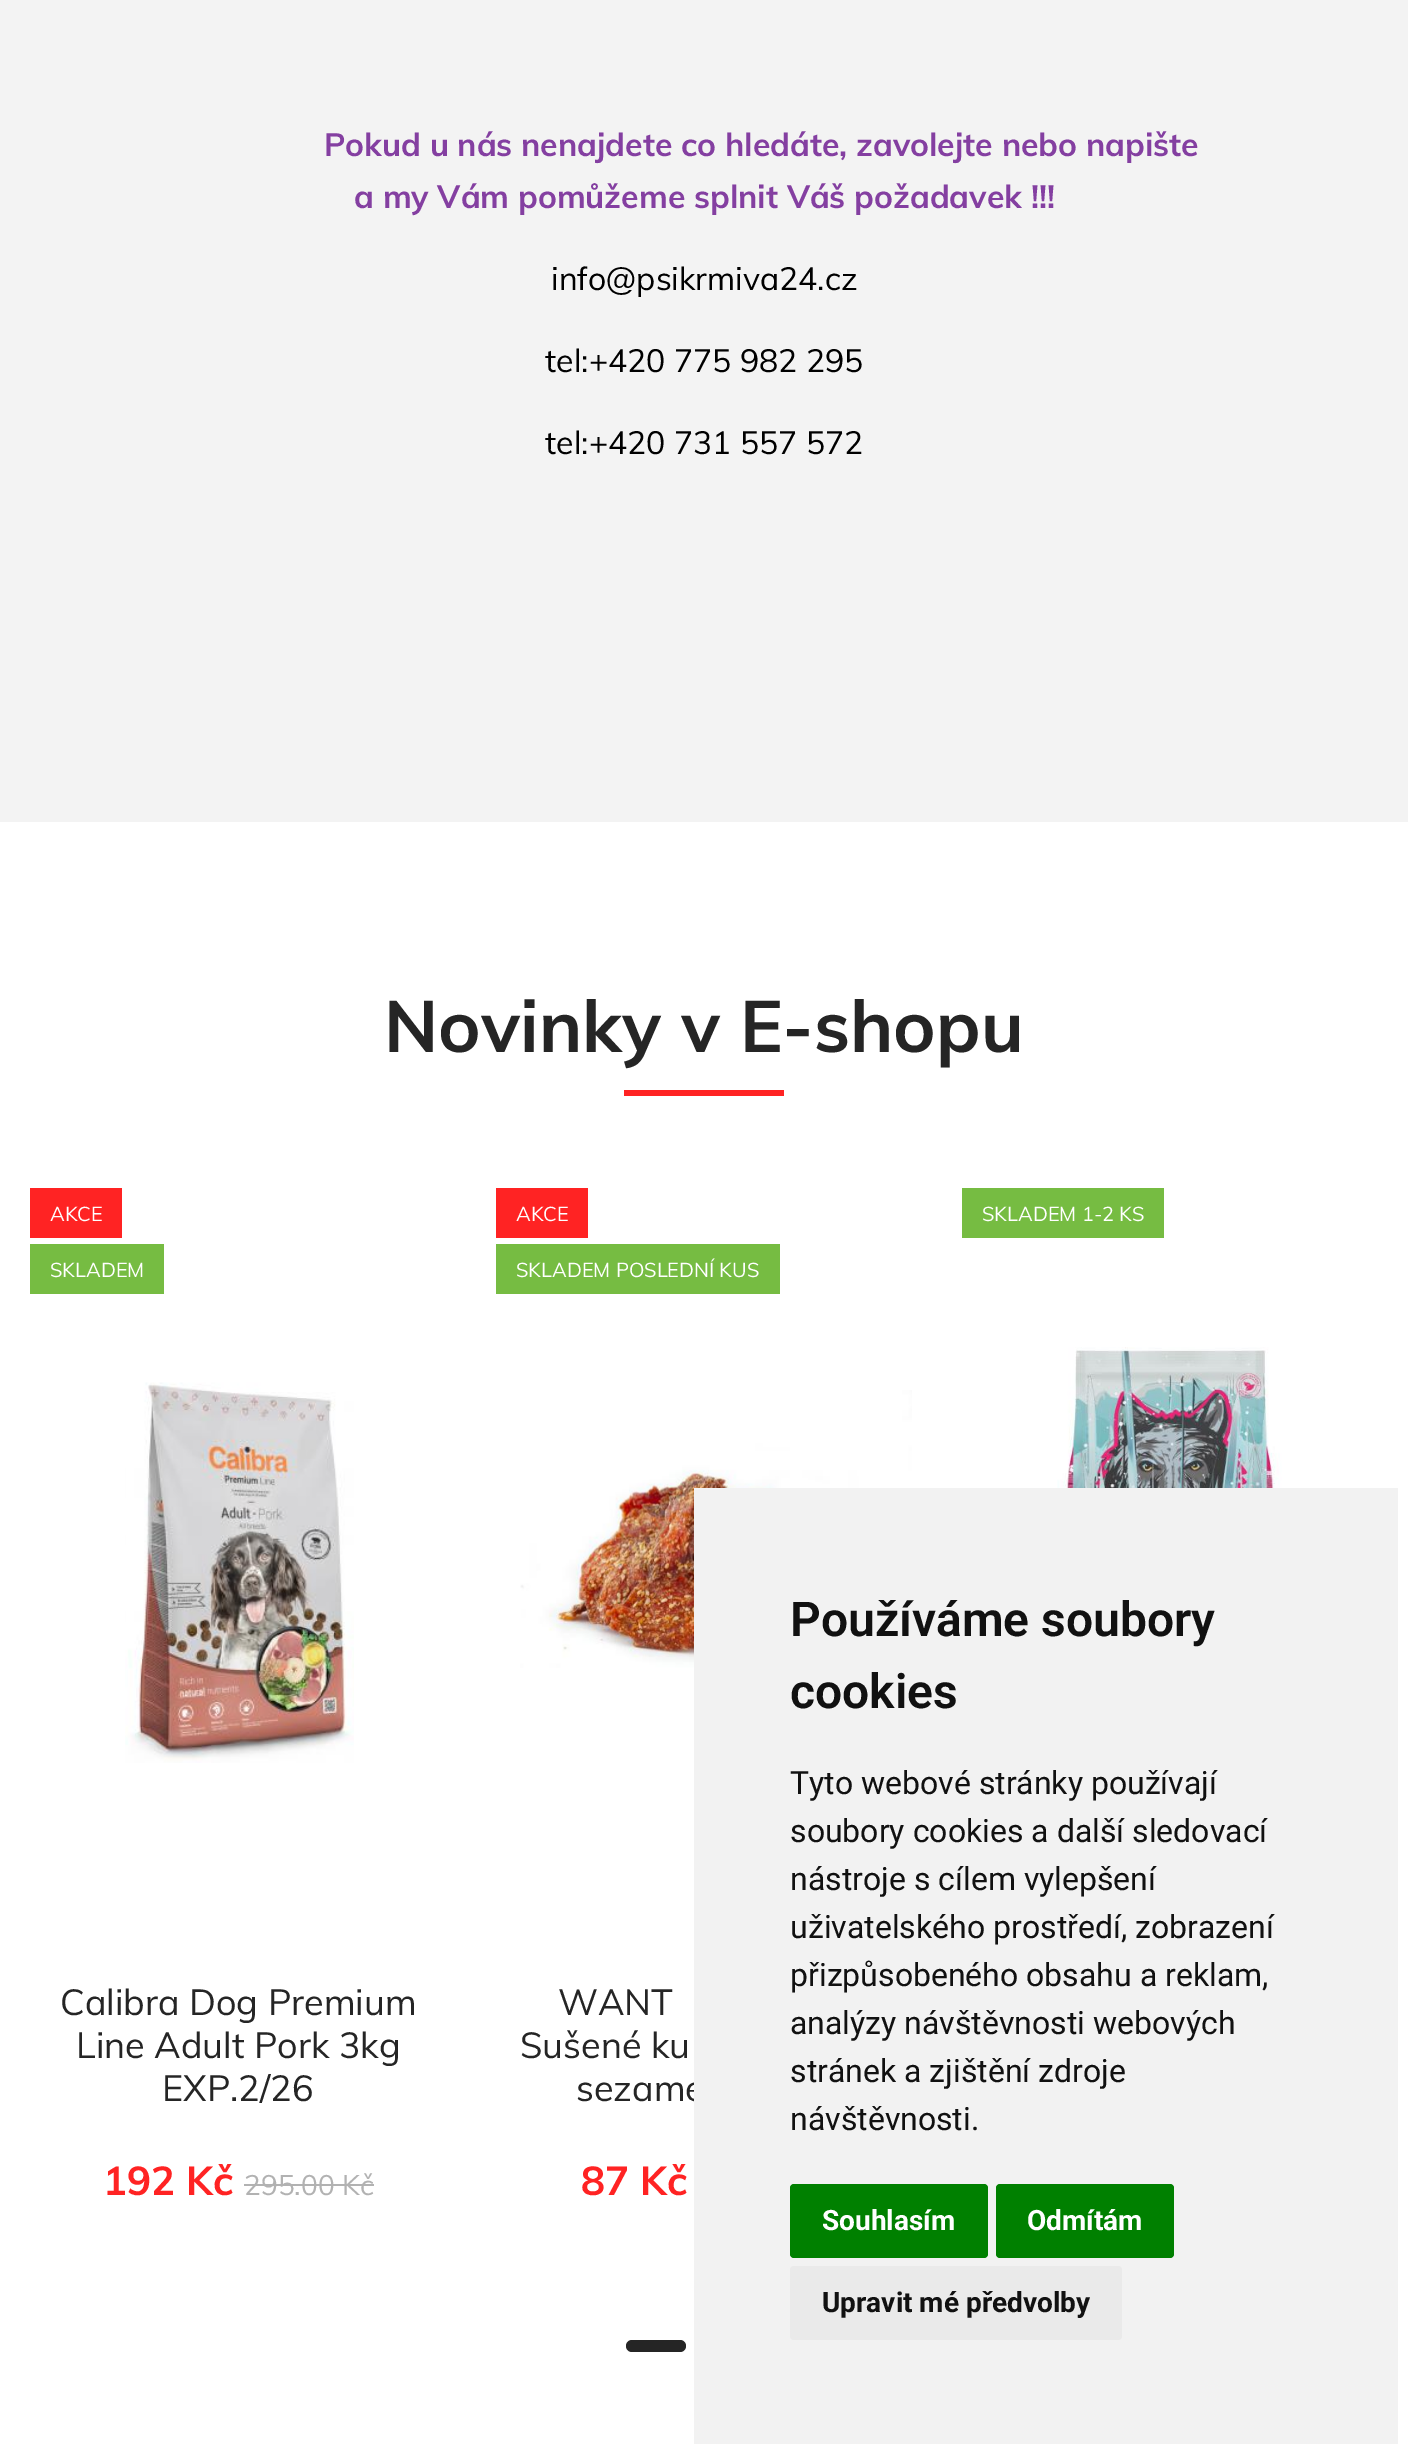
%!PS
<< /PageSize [1408 2453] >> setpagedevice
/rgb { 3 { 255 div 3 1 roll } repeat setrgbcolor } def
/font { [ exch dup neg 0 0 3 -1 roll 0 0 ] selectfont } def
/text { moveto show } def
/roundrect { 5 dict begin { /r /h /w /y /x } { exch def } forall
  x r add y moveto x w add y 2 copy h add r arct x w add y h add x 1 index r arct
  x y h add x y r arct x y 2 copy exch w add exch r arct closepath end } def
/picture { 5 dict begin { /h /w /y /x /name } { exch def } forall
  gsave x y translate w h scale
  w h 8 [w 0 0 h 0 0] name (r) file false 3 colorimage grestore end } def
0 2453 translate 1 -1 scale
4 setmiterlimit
255 255 255 rgb
0 0 1408 2453 rectfill
243 243 243 rgb
0 0 1408 822 rectfill
255 35 35 rgb
624 1090 160 6 rectfill
30 1188 92 50 rectfill
118 188 66 rgb
30 1244 134 50 rectfill
(img_01.rgb) 125 1382 229 381 picture
178 178 178 rgb
244 2184 130 2 rectfill
255 35 35 rgb
496 1188 92 50 rectfill
118 188 66 rgb
496 1244 284 50 rectfill
(img_02.rgb) 520 1390 392 278 picture
962 1188 202 50 rectfill
(img_03.rgb) 1057 1347 225 141 picture
37 37 37 rgb
626 2340 60 12 6 roundrect fill
/Muli-Bold 32 font
132 63 161 rgb
(Pokud u nás nenajdete co hledáte, zavolejte nebo napište) 324 156 text
(a my Vám pomůžeme splnit Váš požadavek !!!) 354 208 text
/Muli-Regular 32 font
0 0 0 rgb
(info@psikrmiva24.cz) 551 290 text
(tel:+420 775 982 295) 545 372 text
(tel:+420 731 557 572) 545 454 text
/Muli-Bold 72 font
37 37 37 rgb
(Novinky v E-shopu) 384 1052 text
/Muli-Regular 20 font
255 255 255 rgb
(AKCE) 50 1221 text
(SKLADEM) 50 1277 text
/Muli-Regular 36 font
37 37 37 rgb
(Calibra Dog Premium) 60 2015 text
(Line Adult Pork 3kg) 76 2058 text
(EXP.2/26) 162 2101 text
/Muli-Bold 40 font
255 35 35 rgb
(192 Kč) 103 2195 text
/Muli-Regular 28 font
178 178 178 rgb
(295.00 Kč) 244 2195 text
/Muli-Regular 20 font
255 255 255 rgb
(AKCE) 516 1221 text
(SKLADEM POSLEDNÍ KUS) 516 1277 text
/Muli-Regular 36 font
37 37 37 rgb
(WANT) 558 2015 text
(Sušené ku) 520 2058 text
(sezame) 576 2101 text
/Muli-Bold 40 font
255 35 35 rgb
(87 Kč) 581 2195 text
/Muli-Regular 20 font
255 255 255 rgb
(SKLADEM 1-2 KS) 982 1221 text
242 242 242 rgb
694 1488 704 956 rectfill
/Roboto-SemiBold 48 font
17 17 17 rgb
(Používáme soubory) 790 1636 text
(cookies) 790 1708 text
/Roboto-Regular 32 font
(Tyto webové stránky používají) 790 1794 text
(soubory cookies a další sledovací) 790 1842 text
(nástroje s cílem vylepšení) 790 1890 text
(uživatelského prostředí, zobrazení) 790 1938 text
(přizpůsobeného obsahu a reklam,) 790 1986 text
(analýzy návštěvnosti webových) 790 2034 text
(stránek a zjištění zdroje) 790 2082 text
(návštěvnosti.) 790 2130 text
0 128 0 rgb
790 2184 198 74 4 roundrect fill
/Roboto-Bold 28 font
255 255 255 rgb
(Souhlasím) 822 2230 text
0 128 0 rgb
996 2184 178 74 4 roundrect fill
255 255 255 rgb
(Odmítám) 1027 2230 text
234 234 234 rgb
790 2266 332 74 4 roundrect fill
17 17 17 rgb
(Upravit mé předvolby) 822 2312 text
showpage
